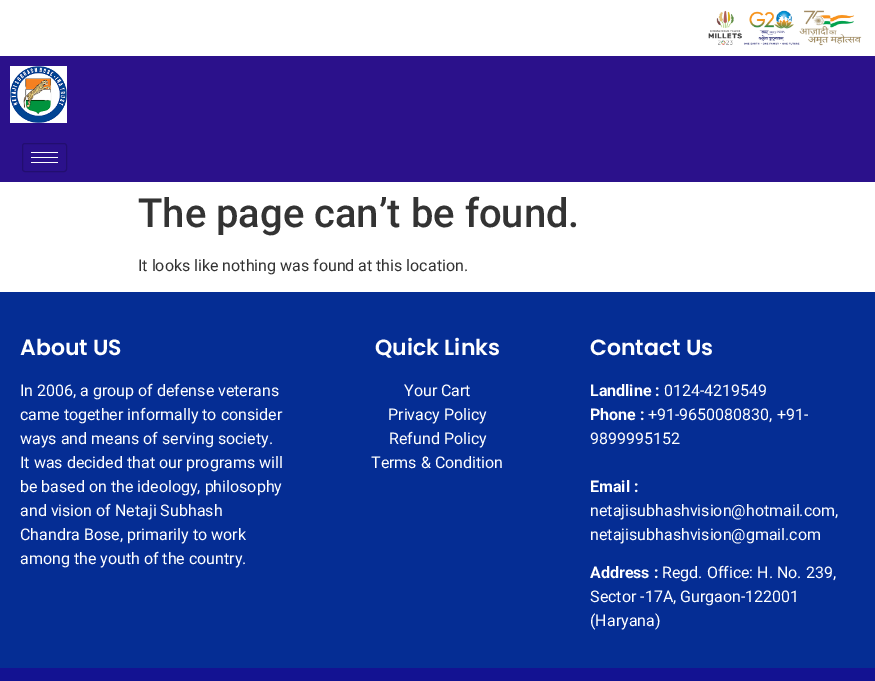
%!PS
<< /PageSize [875 681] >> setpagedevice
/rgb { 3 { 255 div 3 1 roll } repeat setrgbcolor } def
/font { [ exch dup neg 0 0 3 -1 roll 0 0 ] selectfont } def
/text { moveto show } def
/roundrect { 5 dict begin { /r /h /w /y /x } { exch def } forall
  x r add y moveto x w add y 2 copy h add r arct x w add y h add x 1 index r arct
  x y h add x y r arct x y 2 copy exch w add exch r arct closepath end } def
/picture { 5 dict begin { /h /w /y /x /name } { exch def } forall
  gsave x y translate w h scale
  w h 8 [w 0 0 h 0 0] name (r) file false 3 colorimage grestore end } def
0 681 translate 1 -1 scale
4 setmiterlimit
255 255 255 rgb
0 0 875 681 rectfill
(img_01.rgb) 708 10 154 36 picture
43 17 139 rgb
0 56 875 126 rectfill
(img_02.rgb) 10 66 57 57 picture
34 14 111 rgb
22.5 143.5 44 28 2.5 roundrect stroke
255 255 255 rgb
31 152 27 1 rectfill
31 157 27 1 rectfill
31 162 27 1 rectfill
5 45 148 rgb
0 292 875 376 rectfill
19 18 146 rgb
0 668 875 13 rectfill
/Roboto-Medium 40 font
51 51 51 rgb
(The page can’t be found.) 138 227 text
/Roboto-Regular 16 font
(It looks like nothing was found at this location.) 138 271 text
/Poppins-SemiBold 22 font
255 255 255 rgb
(About US) 20 355 text
/Roboto-Regular 16 font
(In 2006, a group of defense veterans) 20 396 text
(came together informally to consider) 20 420 text
(ways and means of serving society.) 20 444 text
(It was decided that our programs will) 20 468 text
(be based on the ideology, philosophy) 20 492 text
(and vision of Netaji Subhash) 20 516 text
(Chandra Bose, primarily to work) 20 540 text
(among the youth of the country.) 20 564 text
/Poppins-SemiBold 22 font
(Quick Links) 375 355 text
/Roboto-Regular 16 font
(Your Cart) 404 396 text
(Privacy Policy) 388 420 text
(Refund Policy) 389 444 text
(Terms & Condition) 371 468 text
/Poppins-SemiBold 22 font
(Contact Us) 590 355 text
/Roboto-Bold 16 font
(Landline :) 590 396 text
/Roboto-Regular 16 font
(0124-4219549) 664 396 text
/Roboto-Bold 16 font
(Phone :) 590 420 text
/Roboto-Regular 16 font
(+91-9650080830, +91-) 648 420 text
(9899995152) 590 444 text
/Roboto-Bold 16 font
(Email :) 590 492 text
/Roboto-Regular 16 font
(netajisubhashvision@hotmail.com,) 590 516 text
(netajisubhashvision@gmail.com) 590 540 text
/Roboto-Bold 16 font
(Address :) 590 578 text
/Roboto-Regular 16 font
(Regd. Office: H. No. 239,) 662 578 text
(Sector -17A, Gurgaon-122001) 590 602 text
(\(Haryana\)) 590 626 text
showpage
